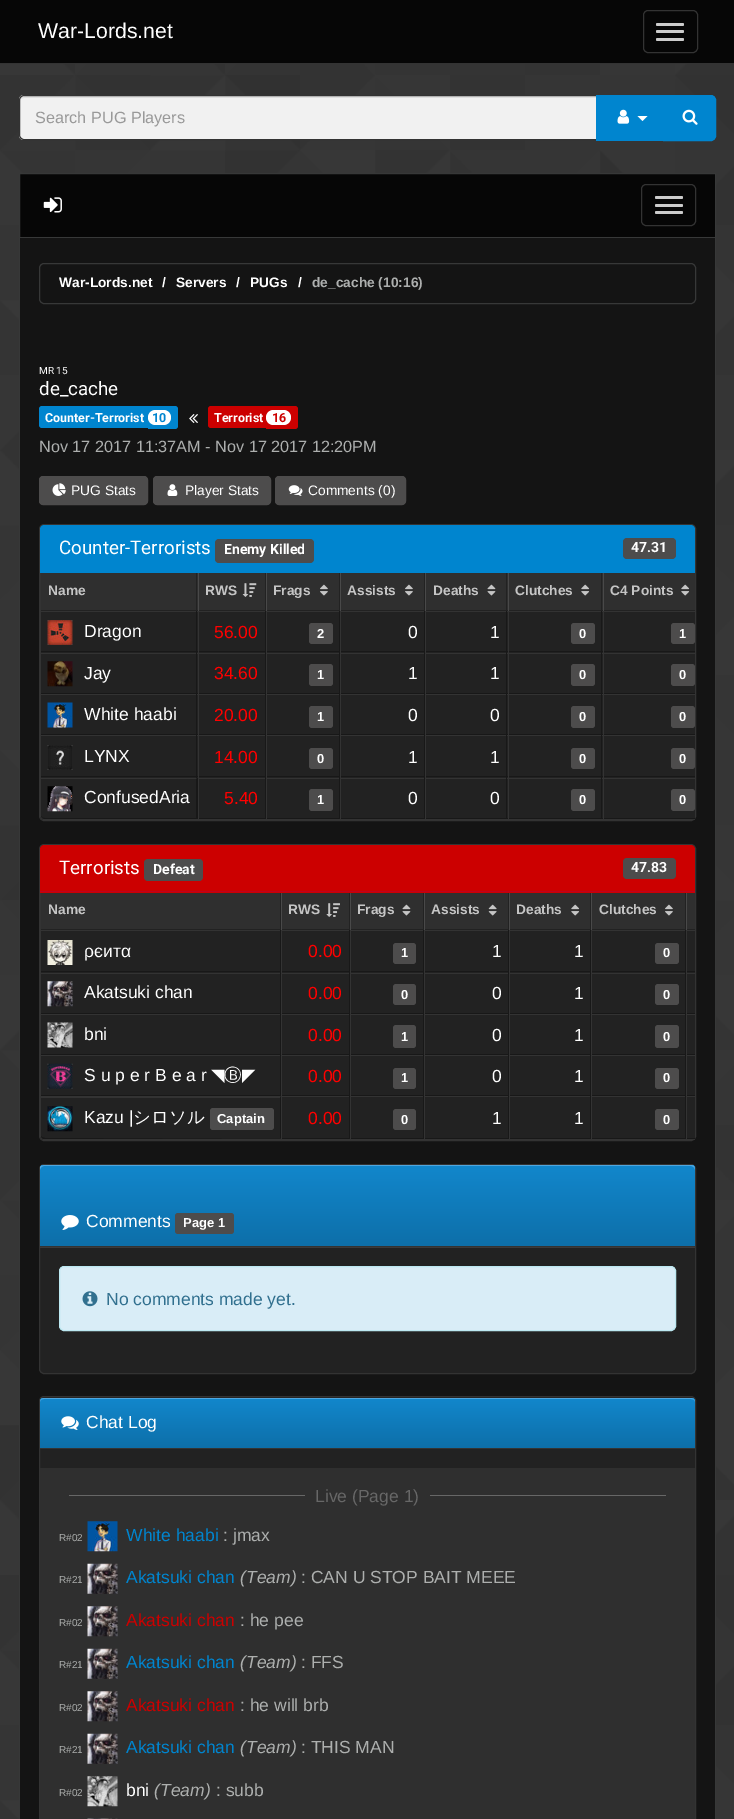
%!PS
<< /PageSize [734 1819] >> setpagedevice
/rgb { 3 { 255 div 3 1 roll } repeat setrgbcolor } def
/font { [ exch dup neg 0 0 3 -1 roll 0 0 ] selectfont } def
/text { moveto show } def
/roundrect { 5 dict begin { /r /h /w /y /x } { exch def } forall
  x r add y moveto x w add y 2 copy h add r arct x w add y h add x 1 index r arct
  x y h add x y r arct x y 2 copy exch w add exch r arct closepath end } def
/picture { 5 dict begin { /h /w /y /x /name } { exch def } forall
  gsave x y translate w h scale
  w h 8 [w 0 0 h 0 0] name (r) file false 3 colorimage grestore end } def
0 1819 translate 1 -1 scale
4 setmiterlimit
255 255 255 rgb
0 0 734 1819 rectfill
(img_01.rgb) 0 64 734 1755 picture
6 6 6 rgb
0 0 734 63 rectfill
51 51 51 rgb
0 63 734 1 rectfill
643.5 10.5 54 42 4.5 roundrect stroke
204 204 204 rgb
656 23 28 3 1.5 roundrect fill
656 30 28 3 1.5 roundrect fill
656 38 28 3 1.5 roundrect fill
241 241 241 rgb
24 95 moveto 574 0 rlineto 0 45 rlineto -574 0 rlineto -3 0 -5 -2 -5 -5 rcurveto 0 -35 rlineto 0 -3 2 -5 5 -5 rcurveto closepath fill
223 223 223 rgb
24 98 moveto 572 0 rlineto 0 -2 rlineto -572 0 rlineto -3 0 -4 2 -4 5 rcurveto 0 -2 2 -3 4 -3 rcurveto closepath fill
51 51 51 rgb
24 95.5 moveto 573.5 0 rlineto 0 44 rlineto -573.5 0 rlineto -2.5 0 -4.5 -2 -4.5 -4.5 rcurveto 0 -35 rlineto 0 -2.5 2 -4.5 4.5 -4.5 rcurveto closepath stroke
0 133 207 rgb
596 95 67 46 rectfill
(img_02.rgb) 617 109 13 15 picture
255 255 255 rgb
637.5 116 moveto 10 0 rlineto -5 5 rlineto closepath fill
0 133 207 rgb
663.5 95.5 moveto 47.5 0 rlineto 2.5 0 4.5 2 4.5 4.5 rcurveto 0 36 rlineto 0 2.5 -2 4.5 -4.5 4.5 rcurveto -47.5 0 rlineto closepath gsave fill grestore
stroke
(img_03.rgb) 682 109 16 16 picture
6 6 6 rgb
19.5 173.5 moveto 696 0 rlineto 0 64 rlineto -696 0 rlineto closepath gsave fill grestore
55 56 56 rgb
stroke
(img_04.rgb) 43 197 19 16 picture
51 51 51 rgb
641.5 184.5 54 41 4.5 roundrect stroke
204 204 204 rgb
655 196 28 3 1.5 roundrect fill
655 204 28 3 1.5 roundrect fill
655 211 28 3 1.5 roundrect fill
20 20 20 rgb
20 238 695 1581 rectfill
55 56 56 rgb
19 238 moveto 697 0 rlineto 0 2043 rlineto 0 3 -2 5 -5 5 rcurveto -687 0 rlineto -3 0 -5 -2 -5 -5 rcurveto closepath 20 238 moveto 695 0 rlineto 0 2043 rlineto 0 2 -2 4 -4 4 rcurveto -687 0 rlineto -2 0 -4 -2 -4 -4 rcurveto closepath eofill
39.5 263.5 656 40 4.5 roundrect stroke
0 133 207 rgb
42 406 moveto 106 0 rlineto 0 22 rlineto -106 0 rlineto -1.5 0 -3 -1.5 -3 -3 rcurveto 0 -16 rlineto 0 -1.5 1.5 -3 3 -3 rcurveto closepath fill
148 406 moveto 27 0 rlineto 1.5 0 3 1.5 3 3 rcurveto 0 17 rlineto 0 1.5 -1.5 3 -3 3 rcurveto -27 0 rlineto closepath fill
255 255 255 rgb
148 410 23 15 7.5 roundrect fill
(img_05.rgb) 189 414 9 9 picture
204 0 0 rgb
211 406 moveto 55 0 rlineto 0 22 rlineto -55 0 rlineto -1.5 0 -3 -1.5 -3 -3 rcurveto 0 -16 rlineto 0 -1.5 1.5 -3 3 -3 rcurveto closepath fill
266 406 moveto 29 0 rlineto 1.5 0 3 1.5 3 3 rcurveto 0 17 rlineto 0 1.5 -1.5 3 -3 3 rcurveto -29 0 rlineto closepath fill
255 255 255 rgb
266 410 25 15 7.5 roundrect fill
77 76 76 rgb
39.5 476.5 108 28 3.5 roundrect gsave fill grestore
stroke
(img_06.rgb) 52 483 14 13 picture
153.5 476.5 117 28 3.5 roundrect gsave fill grestore
stroke
(img_07.rgb) 167 484 11 12 picture
275.5 476.5 130 28 3.5 roundrect gsave fill grestore
stroke
(img_08.rgb) 288 485 15 11 picture
51 51 51 rgb
39.5 524.5 656 296 4.5 roundrect stroke
0 133 207 rgb
44 525 moveto 647 0 rlineto 2 0 4 2 4 4 rcurveto 0 44 rlineto -655 0 rlineto 0 -44 rlineto 0 -2 2 -4 4 -4 rcurveto closepath fill
77 76 76 rgb
215 539 99 24 4 roundrect fill
623 538 53 21 4 roundrect fill
24 24 24 rgb
40 573 moveto 655 0 rlineto 0 247 rlineto -651 0 rlineto -2 0 -4 -2 -4 -4 rcurveto closepath fill
gsave
40 573 655 247 rectclip
51 51 51 rgb
40 572 moveto 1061 0 rlineto 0 244 rlineto 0 2 -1 4 -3 4 rcurveto -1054 0 rlineto -2 0 -4 -2 -4 -4 rcurveto closepath 41 572 moveto 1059 0 rlineto 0 244 rlineto 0 2 -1 3 -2 3 rcurveto -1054 0 rlineto -2 0 -3 -1 -3 -3 rcurveto closepath eofill
grestore
47 47 47 rgb
41 573 157 37 rectfill
34 34 34 rgb
196 573 1 38 rectfill
41 610 157 1 rectfill
47 47 47 rgb
199 573 66 37 rectfill
34 34 34 rgb
265 573 1 38 rectfill
198 610 68 1 rectfill
73 73 73 rgb
198 573 1 38 rectfill
(img_09.rgb) 242 583 15 14 picture
47 47 47 rgb
267 573 72 37 rectfill
34 34 34 rgb
339 573 1 38 rectfill
266 610 74 1 rectfill
73 73 73 rgb
266 573 1 38 rectfill
(img_10.rgb) 320 584 8 12 picture
47 47 47 rgb
341 573 83 37 rectfill
34 34 34 rgb
424 573 1 38 rectfill
340 610 85 1 rectfill
73 73 73 rgb
340 573 1 38 rectfill
(img_10.rgb) 405 584 8 12 picture
47 47 47 rgb
426 573 82 37 rectfill
34 34 34 rgb
506 573 1 38 rectfill
425 610 83 1 rectfill
73 73 73 rgb
425 573 1 38 rectfill
(img_11.rgb) 487 584 9 12 picture
47 47 47 rgb
509 573 94 37 rectfill
34 34 34 rgb
601 573 1 38 rectfill
508 610 187 1 rectfill
73 73 73 rgb
508 573 1 38 rectfill
(img_12.rgb) 581 584 9 12 picture
47 47 47 rgb
604 573 91 37 rectfill
73 73 73 rgb
603 573 1 38 rectfill
(img_12.rgb) 681 584 9 12 picture
34 34 34 rgb
41 612 157 41 rectfill
51 51 51 rgb
41 611 654 1 rectfill
24 24 24 rgb
196 611 1 42 rectfill
41 651 157 1 rectfill
(img_13.rgb) 47 620 26 25 picture
34 34 34 rgb
199 612 66 41 rectfill
24 24 24 rgb
265 611 1 1 rectfill
198 651 68 1 rectfill
51 51 51 rgb
198 611 1 42 rectfill
34 34 34 rgb
267 612 72 41 rectfill
24 24 24 rgb
339 611 1 1 rectfill
266 651 74 1 rectfill
51 51 51 rgb
266 611 1 42 rectfill
77 76 76 rgb
309 623 24 21 3 roundrect fill
34 34 34 rgb
341 612 83 41 rectfill
24 24 24 rgb
424 611 1 1 rectfill
340 651 85 1 rectfill
51 51 51 rgb
340 611 1 42 rectfill
34 34 34 rgb
426 612 82 41 rectfill
24 24 24 rgb
506 611 1 42 rectfill
425 651 83 1 rectfill
51 51 51 rgb
425 611 1 42 rectfill
34 34 34 rgb
509 612 94 41 rectfill
24 24 24 rgb
601 611 1 42 rectfill
508 651 95 1 rectfill
51 51 51 rgb
508 611 1 42 rectfill
77 76 76 rgb
571 623 24 21 3 roundrect fill
34 34 34 rgb
604 612 91 41 rectfill
24 24 24 rgb
603 651 92 1 rectfill
51 51 51 rgb
603 611 1 42 rectfill
77 76 76 rgb
671 623 24 21 3 roundrect fill
34 34 34 rgb
41 654 157 39 rectfill
51 51 51 rgb
41 653 654 1 rectfill
24 24 24 rgb
196 653 1 41 rectfill
(img_14.rgb) 47 661 26 26 picture
34 34 34 rgb
199 654 66 39 rectfill
24 24 24 rgb
265 653 1 1 rectfill
51 51 51 rgb
198 653 1 41 rectfill
34 34 34 rgb
267 654 72 39 rectfill
24 24 24 rgb
339 653 1 1 rectfill
51 51 51 rgb
266 653 1 41 rectfill
77 76 76 rgb
309 664 24 22 3 roundrect fill
34 34 34 rgb
341 654 83 39 rectfill
24 24 24 rgb
424 653 1 1 rectfill
51 51 51 rgb
340 653 1 41 rectfill
34 34 34 rgb
426 654 82 39 rectfill
24 24 24 rgb
506 653 1 41 rectfill
51 51 51 rgb
425 653 1 41 rectfill
34 34 34 rgb
509 654 94 39 rectfill
24 24 24 rgb
601 653 1 41 rectfill
51 51 51 rgb
508 653 1 41 rectfill
77 76 76 rgb
571 664 24 22 3 roundrect fill
34 34 34 rgb
604 654 91 39 rectfill
51 51 51 rgb
603 653 1 41 rectfill
77 76 76 rgb
671 664 24 22 3 roundrect fill
34 34 34 rgb
41 695 157 39 rectfill
51 51 51 rgb
41 694 654 1 rectfill
24 24 24 rgb
196 694 1 41 rectfill
(img_15.rgb) 47 702 26 26 picture
34 34 34 rgb
199 695 66 39 rectfill
24 24 24 rgb
265 694 1 1 rectfill
51 51 51 rgb
198 694 1 41 rectfill
34 34 34 rgb
267 695 72 39 rectfill
24 24 24 rgb
339 694 1 1 rectfill
51 51 51 rgb
266 694 1 41 rectfill
77 76 76 rgb
309 706 24 22 3 roundrect fill
34 34 34 rgb
341 695 83 39 rectfill
24 24 24 rgb
424 694 1 1 rectfill
51 51 51 rgb
340 694 1 41 rectfill
34 34 34 rgb
426 695 82 39 rectfill
24 24 24 rgb
506 694 1 41 rectfill
51 51 51 rgb
425 694 1 41 rectfill
34 34 34 rgb
509 695 94 39 rectfill
24 24 24 rgb
601 694 1 41 rectfill
51 51 51 rgb
508 694 1 41 rectfill
77 76 76 rgb
571 706 24 22 3 roundrect fill
34 34 34 rgb
604 695 91 39 rectfill
51 51 51 rgb
603 694 1 41 rectfill
77 76 76 rgb
671 706 24 22 3 roundrect fill
34 34 34 rgb
41 736 157 42 rectfill
51 51 51 rgb
41 735 654 1 rectfill
24 24 24 rgb
196 735 1 43 rectfill
41 776 157 1 rectfill
(img_16.rgb) 47 745 26 25 picture
34 34 34 rgb
199 736 66 42 rectfill
24 24 24 rgb
265 735 1 1 rectfill
198 776 68 1 rectfill
51 51 51 rgb
198 735 1 43 rectfill
34 34 34 rgb
267 736 72 42 rectfill
24 24 24 rgb
339 735 1 1 rectfill
266 776 74 1 rectfill
51 51 51 rgb
266 735 1 43 rectfill
77 76 76 rgb
309 748 24 21 3 roundrect fill
34 34 34 rgb
341 736 83 42 rectfill
24 24 24 rgb
424 735 1 1 rectfill
340 776 85 1 rectfill
51 51 51 rgb
340 735 1 43 rectfill
34 34 34 rgb
426 736 82 42 rectfill
24 24 24 rgb
506 735 1 43 rectfill
425 776 83 1 rectfill
51 51 51 rgb
425 735 1 43 rectfill
34 34 34 rgb
509 736 94 42 rectfill
24 24 24 rgb
601 735 1 43 rectfill
508 776 95 1 rectfill
51 51 51 rgb
508 735 1 43 rectfill
77 76 76 rgb
571 748 24 21 3 roundrect fill
34 34 34 rgb
604 736 91 42 rectfill
24 24 24 rgb
603 776 92 1 rectfill
51 51 51 rgb
603 735 1 43 rectfill
77 76 76 rgb
671 748 24 21 3 roundrect fill
34 34 34 rgb
41 778 moveto 157 0 rlineto 0 41 rlineto -153 0 rlineto -2 0 -4 -2 -4 -4 rcurveto closepath fill
51 51 51 rgb
41 779 moveto 0 -1 rlineto 156 0 rlineto -1 1 rlineto closepath fill
24 24 24 rgb
196 817 moveto 0 -38 rlineto 2 -1 rlineto 0 41 rlineto closepath fill
198 819 moveto -154 0 rlineto -2 -2 rlineto -1 -1 rlineto 1 1 2 2 4 2 rcurveto 151 0 rlineto 0 -1 rlineto closepath fill
(img_17.rgb) 47 786 26 26 picture
34 34 34 rgb
199 779 66 39 rectfill
51 51 51 rgb
198 778 497 1 rectfill
24 24 24 rgb
265 778 1 1 rectfill
51 51 51 rgb
198 778 1 41 rectfill
34 34 34 rgb
267 779 72 39 rectfill
24 24 24 rgb
339 778 1 1 rectfill
51 51 51 rgb
266 778 1 41 rectfill
77 76 76 rgb
309 789 24 22 3 roundrect fill
34 34 34 rgb
341 779 83 39 rectfill
24 24 24 rgb
424 778 1 1 rectfill
51 51 51 rgb
340 778 1 41 rectfill
34 34 34 rgb
426 779 82 39 rectfill
24 24 24 rgb
506 778 1 41 rectfill
51 51 51 rgb
425 778 1 41 rectfill
34 34 34 rgb
509 779 94 39 rectfill
24 24 24 rgb
601 778 1 41 rectfill
51 51 51 rgb
508 778 1 41 rectfill
77 76 76 rgb
571 789 24 22 3 roundrect fill
34 34 34 rgb
604 779 91 39 rectfill
51 51 51 rgb
603 778 1 41 rectfill
77 76 76 rgb
671 789 24 22 3 roundrect fill
51 51 51 rgb
39.5 844.5 656 296 4.5 roundrect stroke
204 0 0 rgb
44 845 moveto 647 0 rlineto 2 0 4 2 4 4 rcurveto 0 44 rlineto -655 0 rlineto 0 -44 rlineto 0 -2 2 -4 4 -4 rcurveto closepath fill
189 0 31 rgb
40 891 655 1 rectfill
77 76 76 rgb
144 859 59 22 4 roundrect fill
623 858 53 21 4 roundrect fill
24 24 24 rgb
40 893 moveto 655 0 rlineto 0 247 rlineto -651 0 rlineto -2 0 -4 -2 -4 -4 rcurveto closepath fill
gsave
40 893 655 247 rectclip
51 51 51 rgb
40 892 moveto 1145 0 rlineto 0 244 rlineto 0 2 -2 4 -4 4 rcurveto -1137 0 rlineto -2 0 -4 -2 -4 -4 rcurveto closepath 41 892 moveto 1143 0 rlineto 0 244 rlineto 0 2 -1 3 -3 3 rcurveto -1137 0 rlineto -2 0 -3 -1 -3 -3 rcurveto closepath eofill
grestore
47 47 47 rgb
41 893 239 36 rectfill
34 34 34 rgb
280 893 1 37 rectfill
41 929 240 1 rectfill
47 47 47 rgb
282 893 67 36 rectfill
34 34 34 rgb
349 893 1 37 rectfill
281 929 69 1 rectfill
73 73 73 rgb
281 893 1 37 rectfill
(img_18.rgb) 326 903 14 14 picture
47 47 47 rgb
351 893 72 36 rectfill
34 34 34 rgb
423 893 1 37 rectfill
350 929 74 1 rectfill
73 73 73 rgb
350 893 1 37 rectfill
(img_11.rgb) 402 904 9 12 picture
47 47 47 rgb
425 893 83 36 rectfill
34 34 34 rgb
508 893 1 37 rectfill
424 929 85 1 rectfill
73 73 73 rgb
424 893 1 37 rectfill
(img_19.rgb) 488 904 9 12 picture
47 47 47 rgb
510 893 80 36 rectfill
34 34 34 rgb
590 893 1 37 rectfill
509 929 82 1 rectfill
73 73 73 rgb
509 893 1 37 rectfill
(img_12.rgb) 571 904 9 12 picture
47 47 47 rgb
592 893 93 36 rectfill
34 34 34 rgb
685 893 1 37 rectfill
591 929 104 1 rectfill
73 73 73 rgb
591 893 1 37 rectfill
(img_10.rgb) 665 904 8 12 picture
47 47 47 rgb
687 893 8 36 rectfill
73 73 73 rgb
686 893 1 37 rectfill
34 34 34 rgb
41 931 239 42 rectfill
51 51 51 rgb
41 930 654 1 rectfill
24 24 24 rgb
280 930 1 1 rectfill
41 971 240 1 rectfill
(img_20.rgb) 47 940 26 25 picture
34 34 34 rgb
282 931 67 42 rectfill
24 24 24 rgb
349 930 1 1 rectfill
281 971 69 1 rectfill
51 51 51 rgb
281 930 1 43 rectfill
34 34 34 rgb
351 931 72 42 rectfill
24 24 24 rgb
423 930 1 1 rectfill
350 971 74 1 rectfill
51 51 51 rgb
350 930 1 43 rectfill
77 76 76 rgb
393 943 23 21 3 roundrect fill
34 34 34 rgb
425 931 83 42 rectfill
24 24 24 rgb
508 930 1 1 rectfill
424 971 85 1 rectfill
51 51 51 rgb
424 930 1 43 rectfill
34 34 34 rgb
510 931 80 42 rectfill
24 24 24 rgb
590 930 1 1 rectfill
509 971 82 1 rectfill
51 51 51 rgb
509 930 1 43 rectfill
34 34 34 rgb
592 931 93 42 rectfill
24 24 24 rgb
685 930 1 1 rectfill
591 971 95 1 rectfill
51 51 51 rgb
591 930 1 43 rectfill
77 76 76 rgb
655 943 24 21 3 roundrect fill
34 34 34 rgb
687 931 8 42 rectfill
24 24 24 rgb
686 971 9 1 rectfill
51 51 51 rgb
686 930 1 43 rectfill
34 34 34 rgb
41 974 239 39 rectfill
51 51 51 rgb
41 973 654 1 rectfill
24 24 24 rgb
280 973 1 1 rectfill
(img_21.rgb) 47 981 26 26 picture
34 34 34 rgb
282 974 67 39 rectfill
24 24 24 rgb
349 973 1 1 rectfill
51 51 51 rgb
281 973 1 41 rectfill
34 34 34 rgb
351 974 72 39 rectfill
24 24 24 rgb
423 973 1 1 rectfill
51 51 51 rgb
350 973 1 41 rectfill
77 76 76 rgb
393 984 23 21 3 roundrect fill
34 34 34 rgb
425 974 83 39 rectfill
24 24 24 rgb
508 973 1 1 rectfill
51 51 51 rgb
424 973 1 41 rectfill
34 34 34 rgb
510 974 80 39 rectfill
24 24 24 rgb
590 973 1 1 rectfill
51 51 51 rgb
509 973 1 41 rectfill
34 34 34 rgb
592 974 93 39 rectfill
24 24 24 rgb
685 973 1 1 rectfill
51 51 51 rgb
591 973 1 41 rectfill
77 76 76 rgb
655 984 24 21 3 roundrect fill
34 34 34 rgb
687 974 8 39 rectfill
51 51 51 rgb
686 973 1 41 rectfill
34 34 34 rgb
41 1015 239 39 rectfill
51 51 51 rgb
41 1014 654 1 rectfill
24 24 24 rgb
280 1014 1 1 rectfill
(img_22.rgb) 47 1022 26 26 picture
34 34 34 rgb
282 1015 67 39 rectfill
24 24 24 rgb
349 1014 1 1 rectfill
51 51 51 rgb
281 1014 1 41 rectfill
34 34 34 rgb
351 1015 72 39 rectfill
24 24 24 rgb
423 1014 1 1 rectfill
51 51 51 rgb
350 1014 1 41 rectfill
77 76 76 rgb
393 1025 23 23 3 roundrect fill
34 34 34 rgb
425 1015 83 39 rectfill
24 24 24 rgb
508 1014 1 1 rectfill
51 51 51 rgb
424 1014 1 41 rectfill
34 34 34 rgb
510 1015 80 39 rectfill
24 24 24 rgb
590 1014 1 1 rectfill
51 51 51 rgb
509 1014 1 41 rectfill
34 34 34 rgb
592 1015 93 39 rectfill
24 24 24 rgb
685 1014 1 1 rectfill
51 51 51 rgb
591 1014 1 41 rectfill
77 76 76 rgb
655 1025 24 23 3 roundrect fill
34 34 34 rgb
687 1015 8 39 rectfill
51 51 51 rgb
686 1014 1 41 rectfill
34 34 34 rgb
41 1056 239 39 rectfill
51 51 51 rgb
41 1055 654 1 rectfill
24 24 24 rgb
280 1055 1 1 rectfill
(img_23.rgb) 47 1063 26 26 picture
34 34 34 rgb
282 1056 67 39 rectfill
24 24 24 rgb
349 1055 1 1 rectfill
51 51 51 rgb
281 1055 1 41 rectfill
34 34 34 rgb
351 1056 72 39 rectfill
24 24 24 rgb
423 1055 1 1 rectfill
51 51 51 rgb
350 1055 1 41 rectfill
77 76 76 rgb
393 1068 23 21 3 roundrect fill
34 34 34 rgb
425 1056 83 39 rectfill
24 24 24 rgb
508 1055 1 1 rectfill
51 51 51 rgb
424 1055 1 41 rectfill
34 34 34 rgb
510 1056 80 39 rectfill
24 24 24 rgb
590 1055 1 1 rectfill
51 51 51 rgb
509 1055 1 41 rectfill
34 34 34 rgb
592 1056 93 39 rectfill
24 24 24 rgb
685 1055 1 1 rectfill
51 51 51 rgb
591 1055 1 41 rectfill
77 76 76 rgb
655 1068 24 21 3 roundrect fill
34 34 34 rgb
687 1056 8 39 rectfill
51 51 51 rgb
686 1055 1 41 rectfill
34 34 34 rgb
41 1096 moveto 240 0 rlineto 0 43 rlineto -236 0 rlineto -2 0 -4 -2 -4 -4 rcurveto closepath fill
51 51 51 rgb
41 1096 moveto 240 0 rlineto -1 2 rlineto -239 0 rlineto closepath fill
24 24 24 rgb
280 1138 moveto 0 -40 rlineto 1 -2 rlineto 0 42 rlineto closepath fill
41 1136 moveto 1 1 rlineto 3 1 rlineto 235 0 rlineto 1 0 rlineto -237 1 rlineto -1 0 -3 -2 -3 -3 rcurveto closepath fill
(img_24.rgb) 47 1106 26 26 picture
77 76 76 rgb
210 1108 64 22 3 roundrect fill
34 34 34 rgb
282 1097 67 41 rectfill
51 51 51 rgb
281 1096 414 1 rectfill
24 24 24 rgb
349 1096 1 1 rectfill
51 51 51 rgb
281 1096 1 43 rectfill
34 34 34 rgb
351 1097 72 41 rectfill
24 24 24 rgb
423 1096 1 1 rectfill
51 51 51 rgb
350 1096 1 43 rectfill
77 76 76 rgb
393 1109 23 21 3 roundrect fill
34 34 34 rgb
425 1097 83 41 rectfill
24 24 24 rgb
508 1096 1 1 rectfill
51 51 51 rgb
424 1096 1 43 rectfill
34 34 34 rgb
510 1097 80 41 rectfill
24 24 24 rgb
590 1096 1 1 rectfill
51 51 51 rgb
509 1096 1 43 rectfill
34 34 34 rgb
592 1097 93 41 rectfill
24 24 24 rgb
685 1096 1 1 rectfill
51 51 51 rgb
591 1096 1 43 rectfill
77 76 76 rgb
655 1109 24 21 3 roundrect fill
34 34 34 rgb
687 1097 8 41 rectfill
51 51 51 rgb
686 1096 1 43 rectfill
34 34 34 rgb
39.5 1164.5 656 209 4.5 roundrect gsave fill grestore
51 51 51 rgb
stroke
60 59 59 rgb
44 1165 moveto 647 0 rlineto 2 0 4 2 4 4 rcurveto 0 79 rlineto -655 0 rlineto 0 -79 rlineto 0 -2 2 -4 4 -4 rcurveto closepath fill
gsave 44 1165 moveto 647 0 rlineto 2 0 4 2 4 4 rcurveto 0 77 rlineto -655 0 rlineto 0 -77 rlineto 0 -2 2 -4 4 -4 rcurveto closepath clip newpath
<< /ShadingType 2 /ColorSpace /DeviceRGB /Coords [368 1165 368 1246] /Extend [true true] /Function << /FunctionType 2 /Domain [0 1] /C0 [0.071 0.529 0.8] /C1 [0.051 0.435 0.663] /N 1 >> >> shfill grestore
79 167 224 rgb
44 1166 moveto 647 0 rlineto 2 0 4 2 4 4 rcurveto 0 -3 -1 -5 -4 -5 rcurveto -647 0 rlineto -3 1 rlineto -1 1 rlineto 0 3 rlineto 0 -2 2 -4 4 -4 rcurveto closepath fill
51 51 51 rgb
40 1246 655 1 rectfill
(img_25.rgb) 61 1215 18 15 picture
77 76 76 rgb
175 1213 59 21 3 roundrect fill
217 237 247 rgb
59.5 1266.5 616 64 4.5 roundrect gsave fill grestore
188 232 241 rgb
stroke
(img_26.rgb) 82 1291 16 16 picture
34 34 34 rgb
39.5 1396.5 656 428 4.5 roundrect gsave fill grestore
51 51 51 rgb
stroke
gsave 44 1398 moveto 647 0 rlineto 2 0 4 2 4 4 rcurveto 0 46 rlineto -655 0 rlineto 0 -46 rlineto 0 -2 2 -4 4 -4 rcurveto closepath clip newpath
<< /ShadingType 2 /ColorSpace /DeviceRGB /Coords [368 1398 368 1448] /Extend [true true] /Function << /FunctionType 2 /Domain [0 1] /C0 [0.071 0.529 0.8] /C1 [0.051 0.435 0.663] /N 1 >> >> shfill grestore
79 167 224 rgb
44 1399 moveto 647 0 rlineto 2 0 4 1 4 3 rcurveto 0 -2 -2 -4 -4 -4 rcurveto -647 0 rlineto -2 0 -4 2 -4 4 rcurveto 0 -2 2 -3 4 -3 rcurveto closepath fill
51 51 51 rgb
40 1448 655 1 rectfill
(img_27.rgb) 61 1416 18 14 picture
47 47 47 rgb
40 1468 655 351 rectfill
103 103 103 rgb
69 1495 236 1 rectfill
430 1495 236 1 rectfill
(img_28.rgb) 87 1521 31 31 picture
(img_29.rgb) 87 1563 31 31 picture
(img_30.rgb) 87 1606 31 31 picture
(img_29.rgb) 87 1648 31 31 picture
(img_30.rgb) 87 1691 31 31 picture
(img_29.rgb) 87 1733 31 31 picture
(img_31.rgb) 87 1776 31 31 picture
(img_32.rgb) 87 1818 31 1 picture
/LiberationSans-Regular 21.25 font
255 255 255 rgb
(War-Lords.net) 38 38 text
/LiberationSans-Regular 16.25 font
153 153 153 rgb
(Search PUG Players) 35 123 text
/LiberationSans-Bold 13.75 font
255 255 255 rgb
(War-Lords.net) 59 287 text
(/) 162 287 text
(Servers) 176 287 text
(/) 236 287 text
(PUGs) 250 287 text
(/) 298 287 text
173 175 174 rgb
(de_cache \(10:16\)) 312 287 text
/Roboto-Regular 10 font
255 255 255 rgb
(MR 15) 39 374 text
/Roboto-Regular 18.75 font
(de_cache) 39 395 text
/Roboto-Bold 12.5 font
(Counter-Terrorist) 45 422 text
0 133 207 rgb
(10) 152 422 text
255 255 255 rgb
(Terrorist) 214 422 text
204 0 0 rgb
(16) 272 422 text
/LiberationSans-Regular 16.25 font
173 175 174 rgb
(Nov 17 2017 11:37AM - Nov 17 2017 12:20PM) 39 452 text
/LiberationSans-Regular 13.75 font
255 255 255 rgb
(PUG Stats) 71 495 text
(Player Stats) 185 495 text
(Comments \(0\)) 308 495 text
/Roboto-Regular 18.75 font
(Counter-Terrorists) 59 554 text
/Roboto-Bold 14 font
(Enemy Killed) 224 554 text
(47.31) 631 552 text
/LiberationSans-Bold 13.75 font
197 197 197 rgb
(Name) 48 595 text
(RWS) 205 595 text
(Frags) 273 595 text
(Assists) 347 595 text
(Deaths) 433 595 text
(Clutches) 515 595 text
(C4 Points) 610 595 text
/LiberationSans-Regular 17.5 font
255 255 255 rgb
(Dragon) 84 637 text
255 0 0 rgb
(56.00) 214 638 text
/LiberationSans-Bold 13 font
255 255 255 rgb
(2) 317 638 text
/LiberationSans-Regular 17.5 font
(0) 408 638 text
(1) 490 638 text
/LiberationSans-Bold 13 font
(0) 579 638 text
(1) 679 638 text
/LiberationSans-Regular 17.5 font
(Jay) 84 679 text
255 0 0 rgb
(34.60) 214 679 text
/LiberationSans-Bold 13 font
255 255 255 rgb
(1) 317 679 text
/LiberationSans-Regular 17.5 font
(1) 408 679 text
(1) 490 679 text
/LiberationSans-Bold 13 font
(0) 579 679 text
(0) 679 679 text
/LiberationSans-Regular 17.5 font
(White haabi) 84 720 text
255 0 0 rgb
(20.00) 214 721 text
/LiberationSans-Bold 13 font
255 255 255 rgb
(1) 317 721 text
/LiberationSans-Regular 17.5 font
(0) 408 721 text
(0) 490 721 text
/LiberationSans-Bold 13 font
(0) 579 721 text
(0) 679 721 text
/LiberationSans-Regular 17.5 font
(LYNX) 84 762 text
255 0 0 rgb
(14.00) 214 763 text
/LiberationSans-Bold 13 font
255 255 255 rgb
(0) 317 763 text
/LiberationSans-Regular 17.5 font
(1) 408 763 text
(1) 490 763 text
/LiberationSans-Bold 13 font
(0) 579 763 text
(0) 679 763 text
/LiberationSans-Regular 17.5 font
(ConfusedAria) 84 803 text
255 0 0 rgb
(5.40) 224 804 text
/LiberationSans-Bold 13 font
255 255 255 rgb
(1) 317 804 text
/LiberationSans-Regular 17.5 font
(0) 408 804 text
(0) 490 804 text
/LiberationSans-Bold 13 font
(0) 579 804 text
(0) 679 804 text
/Roboto-Regular 18.75 font
(Terrorists) 59 874 text
/Roboto-Bold 14 font
(Defeat) 153 874 text
(47.83) 631 872 text
/LiberationSans-Bold 13.75 font
197 197 197 rgb
(Name) 48 914 text
(RWS) 288 914 text
(Frags) 357 914 text
(Assists) 431 914 text
(Deaths) 516 914 text
(Clutches) 599 914 text
/LiberationSans-Regular 17.5 font
255 255 255 rgb
(ρєитα) 84 957 text
255 0 0 rgb
(0.00) 308 957 text
/LiberationSans-Bold 13 font
255 255 255 rgb
(1) 401 957 text
/LiberationSans-Regular 17.5 font
(1) 492 957 text
(1) 574 957 text
/LiberationSans-Bold 13 font
(0) 663 957 text
/LiberationSans-Regular 17.5 font
(Akatsuki chan) 84 998 text
255 0 0 rgb
(0.00) 308 999 text
/LiberationSans-Bold 13 font
255 255 255 rgb
(0) 401 999 text
/LiberationSans-Regular 17.5 font
(0) 492 999 text
(1) 574 999 text
/LiberationSans-Bold 13 font
(0) 663 999 text
/LiberationSans-Regular 17.5 font
(bni) 84 1040 text
255 0 0 rgb
(0.00) 308 1041 text
/LiberationSans-Bold 13 font
255 255 255 rgb
(1) 401 1041 text
/LiberationSans-Regular 17.5 font
(0) 492 1041 text
(1) 574 1041 text
/LiberationSans-Bold 13 font
(0) 663 1041 text
/LiberationSans-Regular 17.5 font
(S u p e r B e a r) 84 1081 text
/DejaVuSans-Regular 17.5 font
(◥) 211 1081 text
/WenQuanYiZenHei-Medium 17.5 font
(Ⓑ) 224 1081 text
/DejaVuSans-Regular 17.5 font
(◤) 242 1081 text
/LiberationSans-Regular 17.5 font
255 0 0 rgb
(0.00) 308 1082 text
/LiberationSans-Bold 13 font
255 255 255 rgb
(1) 401 1082 text
/LiberationSans-Regular 17.5 font
(0) 492 1082 text
(1) 574 1082 text
/LiberationSans-Bold 13 font
(0) 663 1082 text
/LiberationSans-Regular 17.5 font
(Kazu |) 84 1123 text
/WenQuanYiZenHei-Medium 17.5 font
(シロソル) 133 1123 text
/LiberationSans-Bold 13 font
(Captain) 217 1123 text
/LiberationSans-Regular 17.5 font
255 0 0 rgb
(0.00) 308 1124 text
/LiberationSans-Bold 13 font
255 255 255 rgb
(0) 401 1124 text
/LiberationSans-Regular 17.5 font
(1) 492 1124 text
(1) 574 1124 text
/LiberationSans-Bold 13 font
(0) 663 1124 text
/LiberationSans-Regular 17.5 font
(Comments) 86 1227 text
/LiberationSans-Bold 13 font
(Page 1) 183 1227 text
/LiberationSans-Regular 17.5 font
49 112 143 rgb
(No comments made yet.) 106 1305 text
255 255 255 rgb
(Chat Log) 86 1428 text
103 103 103 rgb
(Live \(Page 1\)) 315 1502 text
/LiberationSans-Regular 10 font
173 175 174 rgb
(R#02) 59 1541 text
/LiberationSans-Regular 17.5 font
0 133 207 rgb
(White haabi) 126 1541 text
173 175 174 rgb
(: jmax) 223 1541 text
/LiberationSans-Regular 10 font
(R#21) 59 1583 text
/LiberationSans-Regular 17.5 font
0 133 207 rgb
(Akatsuki chan) 126 1583 text
/LiberationSans-Italic 17.5 font
173 175 174 rgb
(\(Team\)) 240 1583 text
/LiberationSans-Regular 17.5 font
(: CAN U STOP BAIT MEEE) 301 1583 text
/LiberationSans-Regular 10 font
(R#02) 59 1626 text
/LiberationSans-Regular 17.5 font
204 0 0 rgb
(Akatsuki chan) 126 1626 text
173 175 174 rgb
(: he pee) 240 1626 text
/LiberationSans-Regular 10 font
(R#21) 59 1668 text
/LiberationSans-Regular 17.5 font
0 133 207 rgb
(Akatsuki chan) 126 1668 text
/LiberationSans-Italic 17.5 font
173 175 174 rgb
(\(Team\)) 240 1668 text
/LiberationSans-Regular 17.5 font
(: FFS) 301 1668 text
/LiberationSans-Regular 10 font
(R#02) 59 1711 text
/LiberationSans-Regular 17.5 font
204 0 0 rgb
(Akatsuki chan) 126 1711 text
173 175 174 rgb
(: he will brb) 240 1711 text
/LiberationSans-Regular 10 font
(R#21) 59 1753 text
/LiberationSans-Regular 17.5 font
0 133 207 rgb
(Akatsuki chan) 126 1753 text
/LiberationSans-Italic 17.5 font
173 175 174 rgb
(\(Team\)) 240 1753 text
/LiberationSans-Regular 17.5 font
(: THIS MAN) 301 1753 text
/LiberationSans-Regular 10 font
(R#02) 59 1796 text
/LiberationSans-Regular 17.5 font
255 255 255 rgb
(bni) 126 1796 text
/LiberationSans-Italic 17.5 font
173 175 174 rgb
(\(Team\)) 154 1796 text
/LiberationSans-Regular 17.5 font
(: subb) 216 1796 text
showpage
